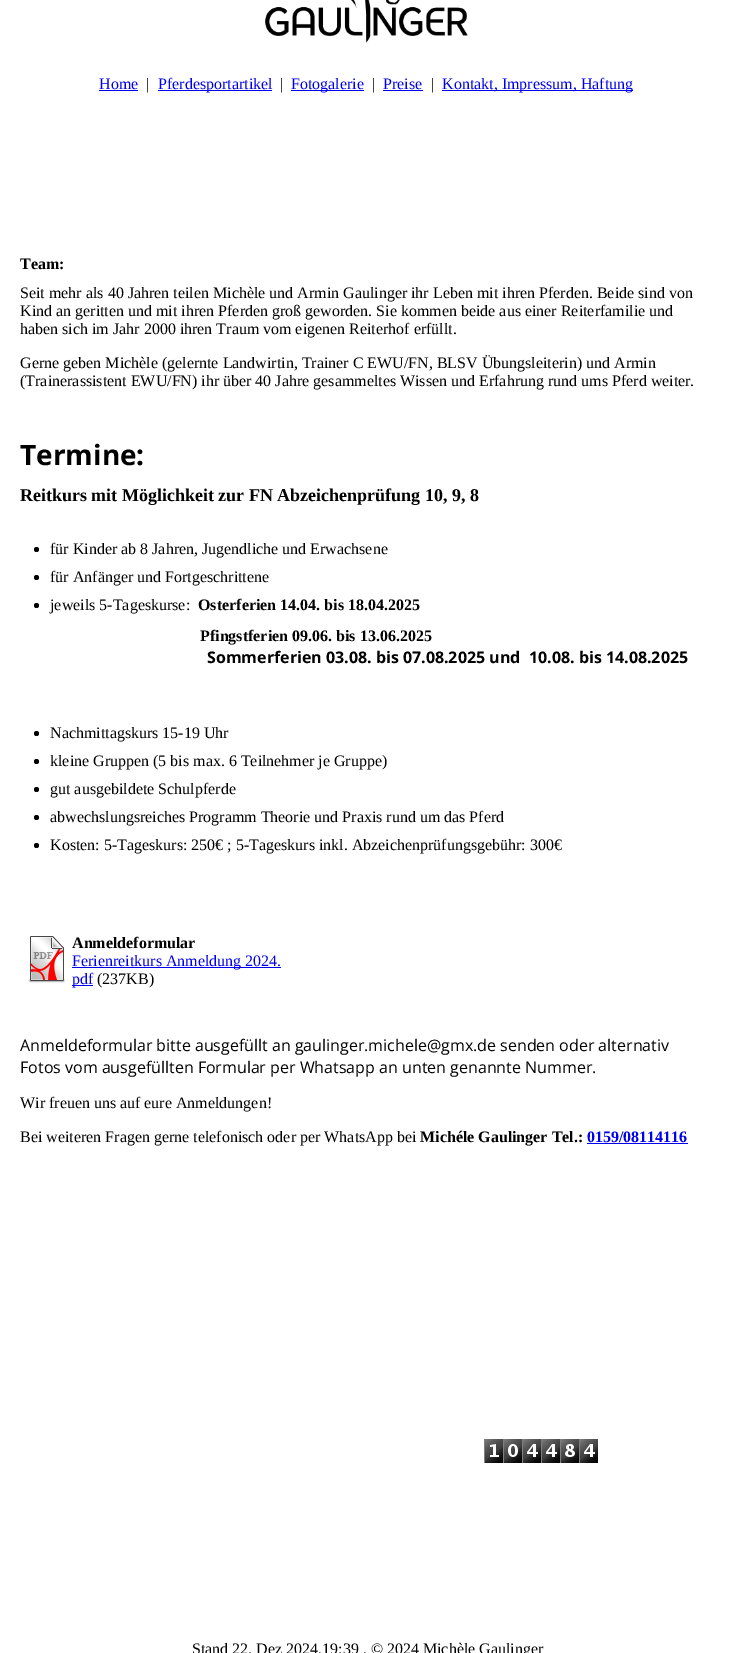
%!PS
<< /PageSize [732 1653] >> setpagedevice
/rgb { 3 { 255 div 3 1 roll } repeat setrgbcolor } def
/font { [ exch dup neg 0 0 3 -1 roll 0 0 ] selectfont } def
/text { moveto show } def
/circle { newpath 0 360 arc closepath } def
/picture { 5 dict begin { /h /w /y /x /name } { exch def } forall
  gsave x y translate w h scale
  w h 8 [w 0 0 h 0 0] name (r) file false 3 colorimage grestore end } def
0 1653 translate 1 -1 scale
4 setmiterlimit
255 255 255 rgb
0 0 732 1653 rectfill
(img_01.rgb) 265 0 203 43 picture
0 0 238 rgb
99 90 39 1 rectfill
158 90 114 1 rectfill
291 90 73 1 rectfill
383 90 40 1 rectfill
442 90 191 1 rectfill
0 0 0 rgb
36.5 549.5 2.5 circle fill
36.5 577.5 2.5 circle fill
36.5 605.5 2.5 circle fill
36.5 733.5 2.5 circle fill
36.5 761.5 2.5 circle fill
36.5 789.5 2.5 circle fill
36.5 817.5 2.5 circle fill
36.5 845.5 2.5 circle fill
(img_02.rgb) 28 935 37 48 picture
0 0 238 rgb
72 967 209 1 rectfill
72 985 21 1 rectfill
587 1143 101 1 rectfill
(img_03.rgb) 484 1439 114 24 picture
/LiberationSerif-Regular 16 font
(Home) 99 89 text
0 0 0 rgb
(|) 146 89 text
0 0 238 rgb
(Pferdesportartikel) 158 89 text
0 0 0 rgb
(|) 280 89 text
0 0 238 rgb
(Fotogalerie) 291 89 text
0 0 0 rgb
(|) 372 89 text
0 0 238 rgb
(Preise) 383 89 text
0 0 0 rgb
(|) 431 89 text
0 0 238 rgb
(Kontakt, Impressum, Haftung) 442 89 text
/LiberationSerif-Bold 16 font
0 0 0 rgb
(Team:) 20 269 text
/LiberationSerif-Regular 16 font
(Seit mehr als 40 Jahren teilen Michèle und Armin Gaulinger ihr Leben mit ihren Pferden. Beide sind von) 20 298 text
(Kind an geritten und mit ihren Pferden groß geworden. Sie kommen beide aus einer Reiterfamilie und) 20 316 text
(haben sich im Jahr 2000 ihren Traum vom eigenen Reiterhof erfüllt.) 20 334 text
(Gerne geben Michèle \(gelernte Landwirtin, Trainer C EWU/FN, BLSV Übungsleiterin\) und Armin) 20 368 text
(\(Trainerassistent EWU/FN\) ihr über 40 Jahre gesammeltes Wissen und Erfahrung rund ums Pferd weiter.) 20 386 text
/OpenSans-Bold 28 font
(Termine:) 20 465 text
/LiberationSerif-Bold 18 font
(Reitkurs mit Möglichkeit zur FN Abzeichenprüfung 10, 9, 8) 20 501 text
/LiberationSerif-Regular 16 font
(für Kinder ab 8 Jahren, Jugendliche und Erwachsene) 50 554 text
(für Anfänger und Fortgeschrittene) 50 582 text
(jeweils 5-Tageskurse:) 50 610 text
/LiberationSerif-Bold 16 font
(Osterferien 14.04. bis 18.04.2025) 198 610 text
(Pfingstferien 09.06. bis 13.06.2025) 200 641 text
/OpenSans-Bold 16 font
(Sommerferien 03.08. bis 07.08.2025 und  10.08. bis 14.08.2025) 207 663 text
/LiberationSerif-Regular 16 font
(Nachmittagskurs 15-19 Uhr) 50 738 text
(kleine Gruppen \(5 bis max. 6 Teilnehmer je Gruppe\)) 50 766 text
(gut ausgebildete Schulpferde) 50 794 text
(abwechslungsreiches Programm Theorie und Praxis rund um das Pferd) 50 822 text
(Kosten: 5-Tageskurs: 250€ ; 5-Tageskurs inkl. Abzeichenprüfungsgebühr: 300€) 50 850 text
/LiberationSerif-Bold 16 font
(Anmeldeformular) 72 948 text
/LiberationSerif-Regular 16 font
0 0 238 rgb
(Ferienreitkurs Anmeldung 2024.) 72 966 text
(pdf) 72 984 text
0 0 0 rgb
(\(237KB\)) 97 984 text
/OpenSans-Regular 16 font
(Anmeldeformular bitte ausgefüllt an gaulinger.michele@gmx.de senden oder alternativ) 20 1051 text
(Fotos vom ausgefüllten Formular per Whatsapp an unten genannte Nummer.) 20 1073 text
/LiberationSerif-Regular 16 font
(Wir freuen uns auf eure Anmeldungen!) 20 1108 text
(Bei weiteren Fragen gerne telefonisch oder per WhatsApp bei) 20 1142 text
/LiberationSerif-Bold 16 font
(Michéle Gaulinger Tel.:) 420 1142 text
0 0 238 rgb
(0159/08114116) 587 1142 text
/LiberationSerif-Regular 16 font
0 0 0 rgb
(Stand 22. Dez 2024,19:39 , © 2024 Michèle Gaulinger) 192 1654 text
showpage
